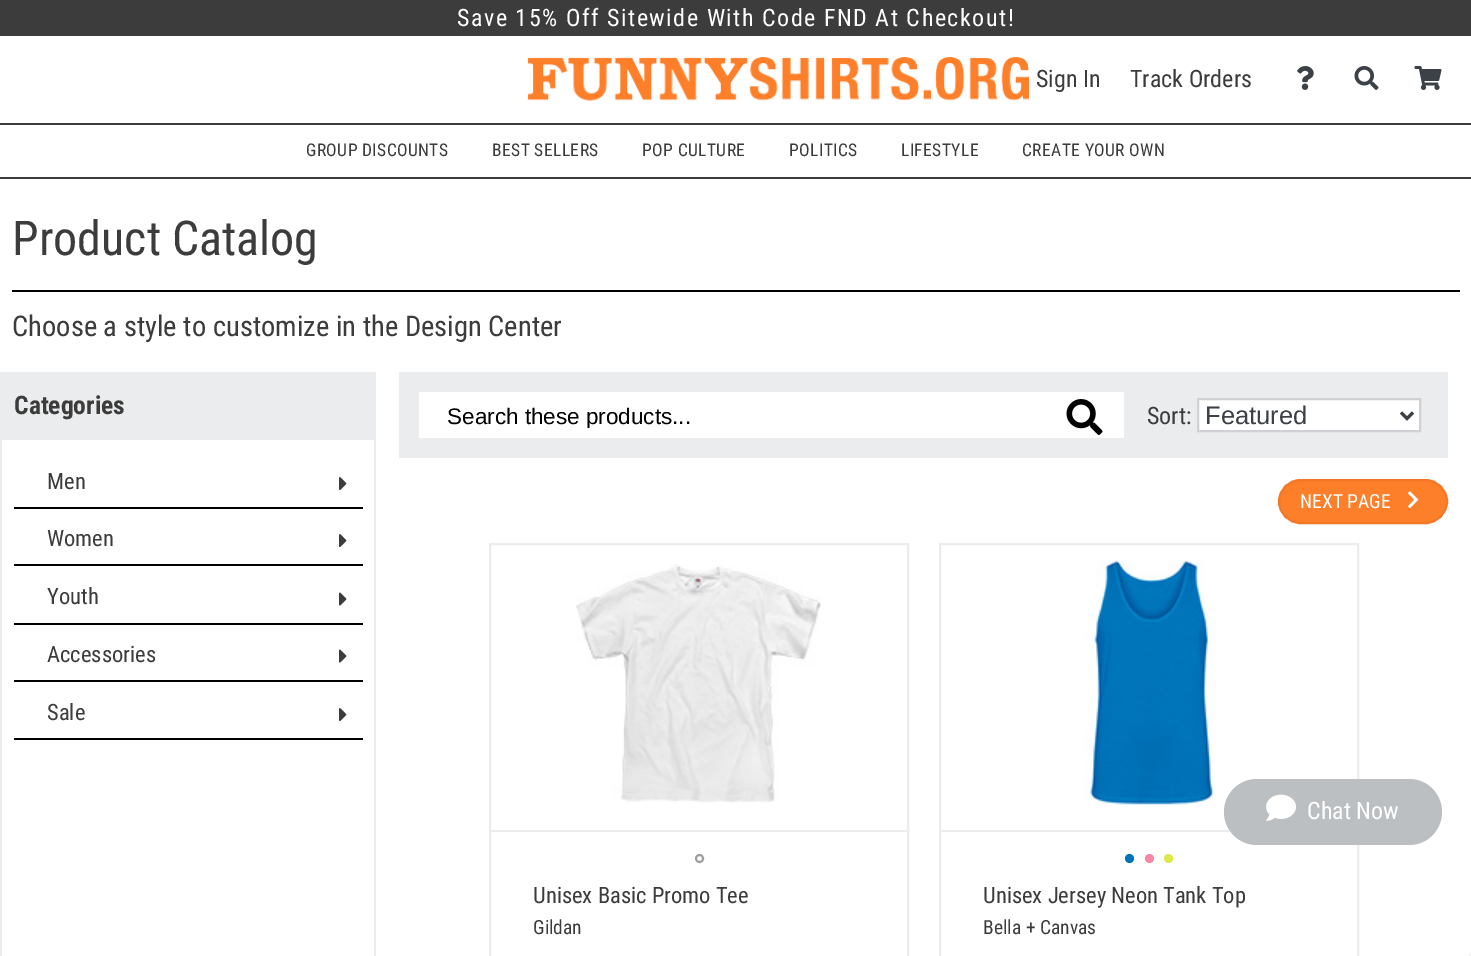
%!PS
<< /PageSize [1471 956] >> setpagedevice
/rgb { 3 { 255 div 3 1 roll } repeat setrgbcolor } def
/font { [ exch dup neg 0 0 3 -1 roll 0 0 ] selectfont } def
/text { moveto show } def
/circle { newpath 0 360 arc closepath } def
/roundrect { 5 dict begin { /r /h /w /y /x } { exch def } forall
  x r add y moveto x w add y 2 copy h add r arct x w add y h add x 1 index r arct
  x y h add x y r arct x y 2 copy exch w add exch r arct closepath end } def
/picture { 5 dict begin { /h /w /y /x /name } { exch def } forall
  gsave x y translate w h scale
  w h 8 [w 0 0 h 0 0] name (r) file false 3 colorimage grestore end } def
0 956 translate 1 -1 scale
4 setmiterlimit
255 255 255 rgb
0 0 1471 956 rectfill
60 60 60 rgb
0 0 1471 36 rectfill
0 123 1471 2 rectfill
(img_01.rgb) 528 57 501 44 picture
(img_02.rgb) 1297 66 17 24 picture
(img_03.rgb) 1354 66 25 24 picture
(img_04.rgb) 1414 66 28 24 picture
0 177 1471 2 rectfill
0 0 0 rgb
12 290 1448 2 rectfill
235 236 237 rgb
374 372 2 584 rectfill
0 372 2 584 rectfill
2 372 372 2 rectfill
2 374 372 66 rectfill
0 0 0 rgb
14 507 349 2 rectfill
(img_05.rgb) 339 477 8 14 picture
14 564 349 2 rectfill
(img_05.rgb) 339 534 8 14 picture
14 623 349 2 rectfill
(img_06.rgb) 339 592 8 14 picture
14 680 349 2 rectfill
(img_06.rgb) 339 649 8 14 picture
14 738 349 2 rectfill
(img_05.rgb) 339 708 8 14 picture
235 236 237 rgb
399 372 1049 86 rectfill
255 255 255 rgb
419 392 705 46 rectfill
(img_07.rgb) 1066 399 37 36 picture
1198 399 moveto 222 0 rlineto 0 32 rlineto -222 0 rlineto closepath gsave fill grestore
207 209 212 rgb
2 setlinewidth
stroke
60 65 71 rgb
3 setlinewidth
1401 412.5 moveto 6 6 rlineto 6 -6 rlineto stroke
254 127 42 rgb
1279 480 168 43 21.5 roundrect gsave fill grestore
243 119 37 rgb
2 setlinewidth
stroke
(img_08.rgb) 1408 491 11 17 picture
235 236 237 rgb
490 544 418 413 rectstroke
(img_09.rgb) 576 564 245 239 picture
491 830 417 2 rectfill
159 159 159 rgb
699.5 858.5 3.5 circle stroke
235 236 237 rgb
940 544 418 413 rectstroke
(img_10.rgb) 1084 559 132 248 picture
941 830 290 2 rectfill
0 116 185 rgb
1129.5 858.5 4.5 circle fill
246 135 168 rgb
1149.5 858.5 4.5 circle fill
221 234 69 rgb
1168.5 858.5 4.5 circle fill
188 191 194 rgb
1224 779 218 66 33 roundrect fill
(img_11.rgb) 1266 794 30 27 picture
245 245 245 rgb
1469 954 2 2 rectfill
/RobotoCondensed-Regular 24 font
255 255 255 rgb
457 26 moveto 1.5 0 (Save 15% Off Sitewide With Code FND At Checkout!) ashow
60 60 60 rgb
(Sign In) 1036 87 text
(Track Orders) 1130 87 text
/RobotoCondensed-Regular 17.5 font
306 156 moveto 0.4 0 (GROUP DISCOUNTS) ashow
492 156 moveto 0.4 0 (BEST SELLERS) ashow
642 156 moveto 0.4 0 (POP CULTURE) ashow
789 156 moveto 0.4 0 (POLITICS) ashow
901 156 moveto 0.4 0 (LIFESTYLE) ashow
1022 156 moveto 0.4 0 (CREATE YOUR OWN) ashow
/RobotoCondensed-Regular 48 font
(Product Catalog) 12 255 text
/RobotoCondensed-Regular 28.5 font
(Choose a style to customize in the Design Center) 12 336 text
/RobotoCondensed-Bold 25.5 font
(Categories) 14 414 text
/RobotoCondensed-Regular 22.5 font
(Men) 47 489 text
(Women) 47 546 text
(Youth) 47 604 text
(Accessories) 47 662 text
(Sale) 47 720 text
gsave
447 402 585 26 rectclip
/LiberationSans-Regular 22.5 font
0 0 0 rgb
(Search these products...) 447 424 text
grestore
/RobotoCondensed-Regular 24 font
(Sort:) 1147 424 text
/LiberationSans-Regular 25.5 font
60 65 71 rgb
(Featured) 1205 424 text
/RobotoCondensed-Regular 19.5 font
255 255 255 rgb
(NEXT PAGE) 1300 508 text
/RobotoCondensed-Regular 22.5 font
60 60 60 rgb
(Unisex Basic Promo Tee) 533 903 text
/RobotoCondensed-Regular 19.5 font
(Gildan) 533 934 text
/RobotoCondensed-Regular 22.5 font
(Unisex Jersey Neon Tank Top) 983 903 text
/RobotoCondensed-Regular 19.5 font
(Bella + Canvas) 983 934 text
/RobotoCondensed-Regular 24 font
255 255 255 rgb
(Chat Now) 1307 819 text
showpage
